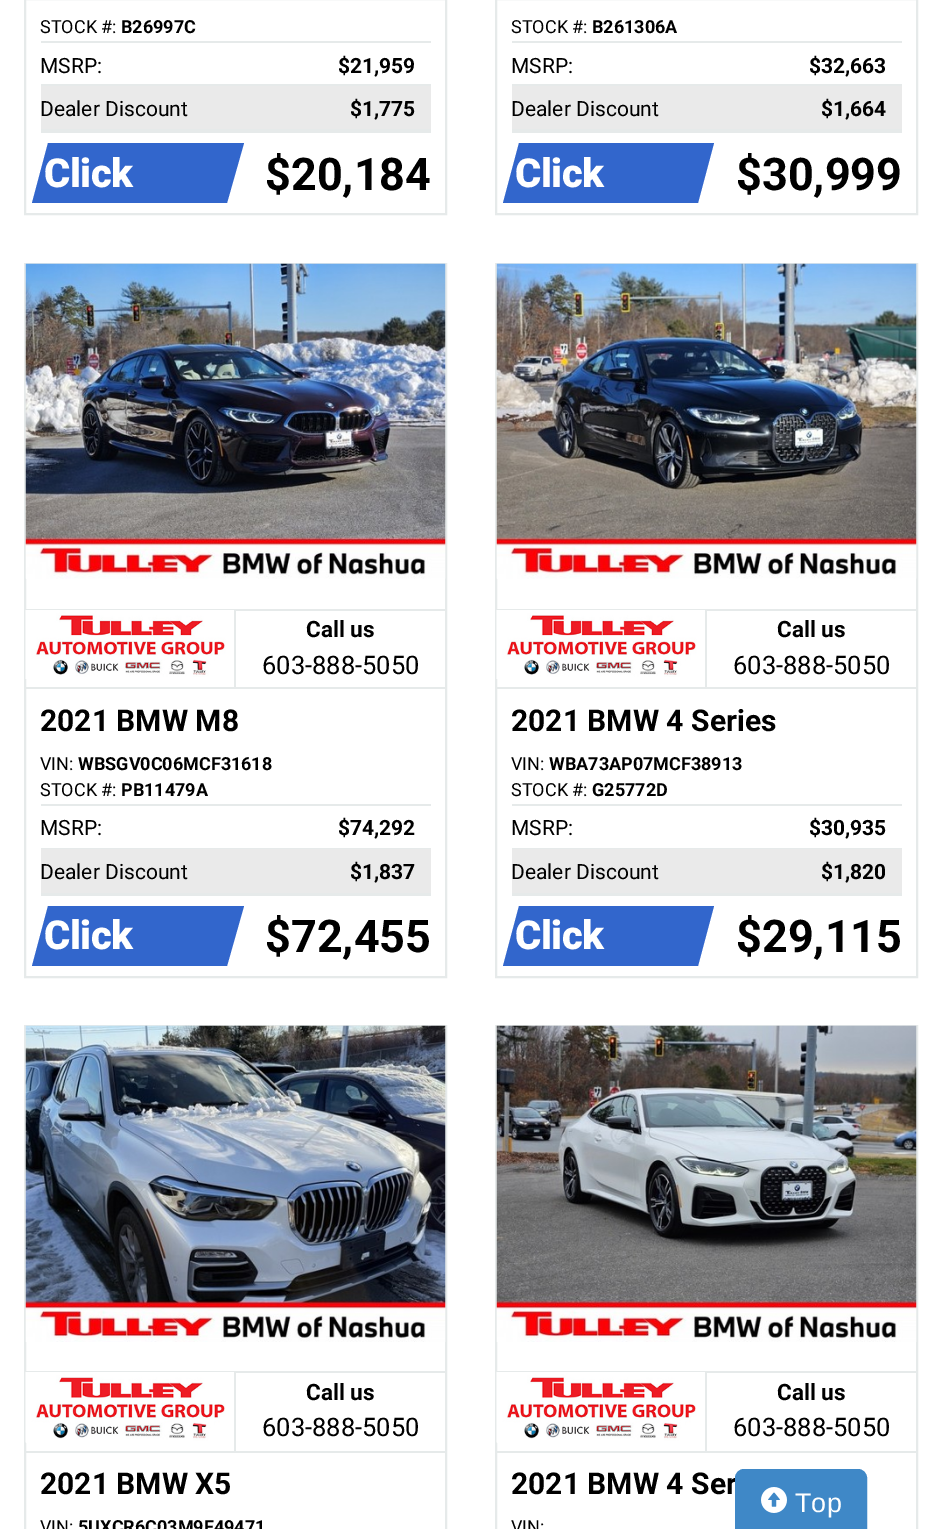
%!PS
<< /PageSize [941 1529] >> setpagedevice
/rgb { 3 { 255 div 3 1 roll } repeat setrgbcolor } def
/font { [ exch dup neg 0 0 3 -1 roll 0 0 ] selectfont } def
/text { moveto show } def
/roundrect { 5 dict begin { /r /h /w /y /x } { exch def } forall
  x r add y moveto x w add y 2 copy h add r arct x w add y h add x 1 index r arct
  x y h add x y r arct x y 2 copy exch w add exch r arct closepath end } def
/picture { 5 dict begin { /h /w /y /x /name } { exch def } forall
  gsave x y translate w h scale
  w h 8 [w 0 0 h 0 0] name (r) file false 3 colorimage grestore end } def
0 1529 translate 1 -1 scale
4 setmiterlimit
255 255 255 rgb
0 0 941 1529 rectfill
230 234 234 rgb
2 setlinewidth
25 -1 421 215 rectstroke
41 41 390 2 rectfill
41 84 390 2 rectfill
234 234 234 rgb
41 86 390 43 rectfill
230 234 234 rgb
41 129 390 4 rectfill
50 102 204 rgb
48 143 moveto 196 0 rlineto -17 60 rlineto -195 0 rlineto closepath fill
230 234 234 rgb
496 -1 421 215 rectstroke
512 41 390 2 rectfill
512 84 390 2 rectfill
234 234 234 rgb
512 86 390 43 rectfill
230 234 234 rgb
512 129 390 4 rectfill
50 102 204 rgb
519 143 moveto 195 0 rlineto -16 60 rlineto -195 0 rlineto closepath fill
230 234 234 rgb
25 264 421 713 rectstroke
(img_01.rgb) 25 263 421 316 picture
26 609 210 1 rectfill
234 609 2 80 rectfill
26 687 420 2 rectfill
(img_02.rgb) 25 610 209 69 picture
236 609 210 2 rectfill
41 804 390 2 rectfill
41 848 390 1 rectfill
234 234 234 rgb
41 849 390 44 rectfill
230 234 234 rgb
41 893 390 3 rectfill
50 102 204 rgb
48 906 moveto 196 0 rlineto -17 60 rlineto -195 0 rlineto closepath fill
230 234 234 rgb
496 264 421 713 rectstroke
(img_03.rgb) 496 263 421 316 picture
497 609 210 1 rectfill
705 609 2 80 rectfill
497 687 420 2 rectfill
(img_02.rgb) 496 610 209 69 picture
707 609 210 2 rectfill
512 804 390 2 rectfill
512 848 390 1 rectfill
234 234 234 rgb
512 849 390 44 rectfill
230 234 234 rgb
512 893 390 3 rectfill
50 102 204 rgb
519 906 moveto 195 0 rlineto -16 60 rlineto -195 0 rlineto closepath fill
230 234 234 rgb
25 1026 421 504 rectstroke
(img_04.rgb) 25 1025 421 317 picture
26 1371 210 1 rectfill
234 1371 2 81 rectfill
26 1451 420 2 rectfill
(img_05.rgb) 25 1372 209 71 picture
236 1371 210 2 rectfill
496 1026 421 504 rectstroke
(img_06.rgb) 496 1025 421 317 picture
497 1371 210 1 rectfill
705 1371 2 81 rectfill
497 1451 420 2 rectfill
(img_05.rgb) 496 1372 209 71 picture
707 1371 210 2 rectfill
/Roboto-Regular 18 font
0 0 0 rgb
(STOCK #:) 40 33 text
/Roboto-Bold 18 font
(B26997C) 121 33 text
/Roboto-Regular 21 font
(MSRP:) 40 73 text
/Roboto-Bold 21 font
($21,959) 338 73 text
/Roboto-Regular 21 font
(Dealer Discount) 40 116 text
/Roboto-Bold 21 font
($1,775) 350 116 text
/Roboto-Black 40 font
255 255 255 rgb
44 187 moveto -0.5 0 (Click) ashow
/Roboto-Bold 45 font
0 0 0 rgb
($20,184) 265 190 text
/Roboto-Regular 18 font
(STOCK #:) 511 33 text
/Roboto-Bold 18 font
(B261306A) 592 33 text
/Roboto-Regular 21 font
(MSRP:) 511 73 text
/Roboto-Bold 21 font
($32,663) 809 73 text
/Roboto-Regular 21 font
(Dealer Discount) 511 116 text
/Roboto-Bold 21 font
($1,664) 821 116 text
/Roboto-Black 40 font
255 255 255 rgb
515 187 moveto -0.5 0 (Click) ashow
/Roboto-Bold 45 font
0 0 0 rgb
($30,999) 736 190 text
/Roboto-Bold 22.5 font
(Call us) 306 637 text
/Roboto-Regular 25.5 font
(603-888-5050) 262 674 text
/Roboto-Bold 30 font
(2021 BMW M8) 40 731 text
/Roboto-Regular 18 font
(VIN:) 40 770 text
/Roboto-Bold 18 font
(WBSGV0C06MCF31618) 78 770 text
/Roboto-Regular 18 font
(STOCK #:) 40 796 text
/Roboto-Bold 18 font
(PB11479A) 121 796 text
/Roboto-Regular 21 font
(MSRP:) 40 835 text
/Roboto-Bold 21 font
($74,292) 338 835 text
/Roboto-Regular 21 font
(Dealer Discount) 40 879 text
/Roboto-Bold 21 font
($1,837) 350 879 text
/Roboto-Black 40 font
255 255 255 rgb
44 949 moveto -0.5 0 (Click) ashow
/Roboto-Bold 45 font
0 0 0 rgb
($72,455) 265 952 text
/Roboto-Bold 22.5 font
(Call us) 777 637 text
/Roboto-Regular 25.5 font
(603-888-5050) 733 674 text
/Roboto-Bold 30 font
(2021 BMW 4 Series) 511 731 text
/Roboto-Regular 18 font
(VIN:) 511 770 text
/Roboto-Bold 18 font
(WBA73AP07MCF38913) 549 770 text
/Roboto-Regular 18 font
(STOCK #:) 511 796 text
/Roboto-Bold 18 font
(G25772D) 592 796 text
/Roboto-Regular 21 font
(MSRP:) 511 835 text
/Roboto-Bold 21 font
($30,935) 809 835 text
/Roboto-Regular 21 font
(Dealer Discount) 511 879 text
/Roboto-Bold 21 font
($1,820) 821 879 text
/Roboto-Black 40 font
255 255 255 rgb
515 949 moveto -0.5 0 (Click) ashow
/Roboto-Bold 45 font
0 0 0 rgb
($29,115) 736 952 text
/Roboto-Bold 22.5 font
(Call us) 306 1400 text
/Roboto-Regular 25.5 font
(603-888-5050) 262 1436 text
/Roboto-Bold 30 font
(2021 BMW X5) 40 1494 text
/Roboto-Regular 18 font
(VIN:) 40 1533 text
/Roboto-Bold 18 font
(5UXCR6C03M9F49471) 78 1533 text
/Roboto-Bold 22.5 font
(Call us) 777 1400 text
/Roboto-Regular 25.5 font
(603-888-5050) 733 1436 text
/Roboto-Bold 30 font
(2021 BMW 4 Ser) 511 1494 text
/Roboto-Regular 18 font
(VIN:) 511 1533 text
63 136 199 rgb
736 1470 130 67 8 roundrect gsave fill grestore
stroke
(img_07.rgb) 761 1487 26 26 picture
/LiberationSans-Regular 27 font
255 255 255 rgb
(Top) 795 1512 text
showpage
